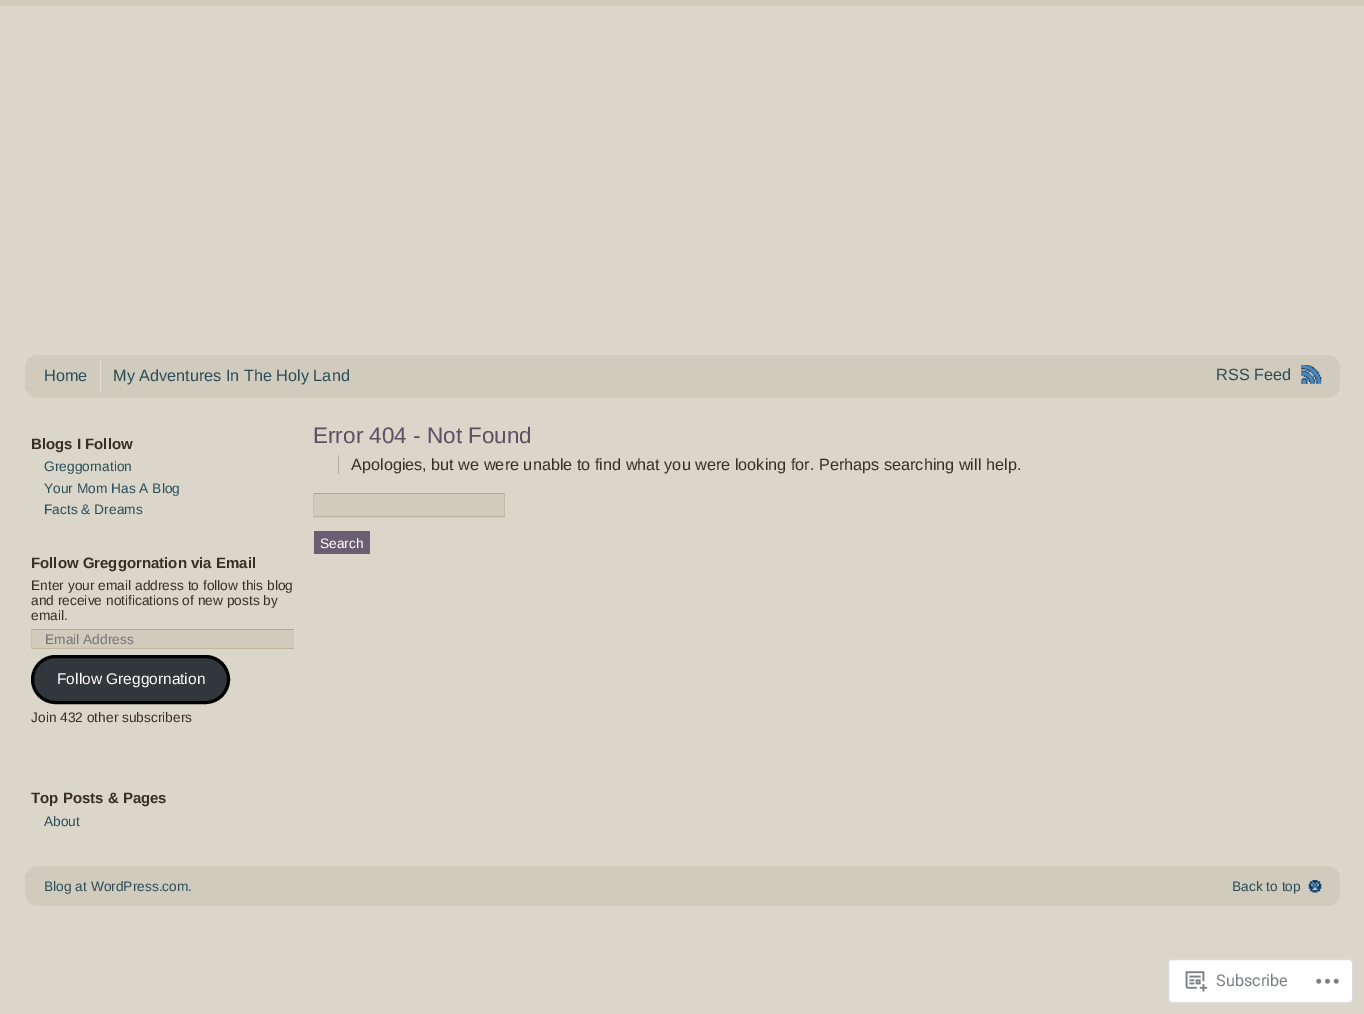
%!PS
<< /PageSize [1364 1014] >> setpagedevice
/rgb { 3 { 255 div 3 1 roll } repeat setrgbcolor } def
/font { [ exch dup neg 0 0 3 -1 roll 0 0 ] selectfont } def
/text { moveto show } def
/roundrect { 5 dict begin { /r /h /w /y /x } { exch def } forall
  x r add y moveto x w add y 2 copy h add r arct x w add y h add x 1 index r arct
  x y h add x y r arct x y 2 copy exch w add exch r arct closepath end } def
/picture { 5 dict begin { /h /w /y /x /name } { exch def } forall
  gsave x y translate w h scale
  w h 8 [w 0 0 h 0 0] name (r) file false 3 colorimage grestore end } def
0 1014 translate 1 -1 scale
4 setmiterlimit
218 214 202 rgb
0 0 1364 1014 rectfill
208 203 188 rgb
0 0 1364 6 rectfill
25 355 1315 43 13 roundrect fill
227 224 215 rgb
100 361 1 30 rectfill
(img_01.rgb) 1301 365 21 19 picture
208 203 188 rgb
32 630 262 18 rectfill
175 166 140 rgb
31 629 263 1 rectfill
190 180 160 rgb
31 648 263 1 rectfill
196 190 170 rgb
31 629 1 20 rectfill
50 55 60 rgb
32.5 656.5 196 46 23 roundrect gsave fill grestore
0 0 0 rgb
3 setlinewidth
stroke
184 174 151 rgb
338 455 1 19 rectfill
208 203 188 rgb
314 494 190 24 rectfill
175 166 140 rgb
313 493 192 1 rectfill
195 186 166 rgb
504 493 1 25 rectfill
190 180 160 rgb
313 516 192 1 rectfill
196 190 170 rgb
313 493 1 25 rectfill
106 94 114 rgb
314 531 56 23 rectfill
208 203 188 rgb
25 866 1315 40 13 roundrect fill
(img_02.rgb) 1308 880 14 13 picture
254 254 254 rgb
1168.5 959.5 184 43 3.5 roundrect gsave fill grestore
220 220 222 rgb
1 setlinewidth
stroke
(img_03.rgb) 1185 971 23 21 picture
(img_04.rgb) 1316 978 23 6 picture
/LiberationSans-Regular 16.25 font
43 77 89 rgb
(Home) 44 381 text
(My Adventures In The Holy Land) 113 381 text
(RSS Feed) 1216 380 text
/LiberationSans-Bold 15 font
55 47 36 rgb
(Blogs I Follow) 31 449 text
/LiberationSans-Regular 13.75 font
43 77 89 rgb
(Greggornation) 44 471 text
(Your Mom Has A Blog) 44 493 text
(Facts & Dreams) 44 514 text
/LiberationSans-Bold 15 font
55 47 36 rgb
(Follow Greggornation via Email) 31 568 text
/LiberationSans-Regular 13.75 font
(Enter your email address to follow this blog) 31 590 text
(and receive notifications of new posts by) 31 605 text
(email.) 31 620 text
117 117 117 rgb
(Email Address) 45 644 text
/LiberationSans-Regular 15.5 font
255 255 255 rgb
(Follow Greggornation) 57 684 text
/LiberationSans-Regular 13.75 font
55 47 36 rgb
(Join 432 other subscribers) 31 722 text
/LiberationSans-Bold 15 font
(Top Posts & Pages) 31 803 text
/LiberationSans-Regular 13.75 font
43 77 89 rgb
(About) 44 826 text
/LiberationSans-Regular 22.5 font
93 82 100 rgb
(Error 404 - Not Found) 313 443 text
/LiberationSans-Regular 16.25 font
55 47 36 rgb
(Apologies, but we were unable to find what you were looking for. Perhaps searching will help.) 351 470 text
/LiberationSans-Regular 13.75 font
255 255 255 rgb
(Search) 320 548 text
43 77 89 rgb
(Blog at WordPress.com.) 44 891 text
(Back to top) 1232 891 text
/Roboto-Regular 16.25 font
122 126 131 rgb
(Subscribe) 1216 986 text
showpage
